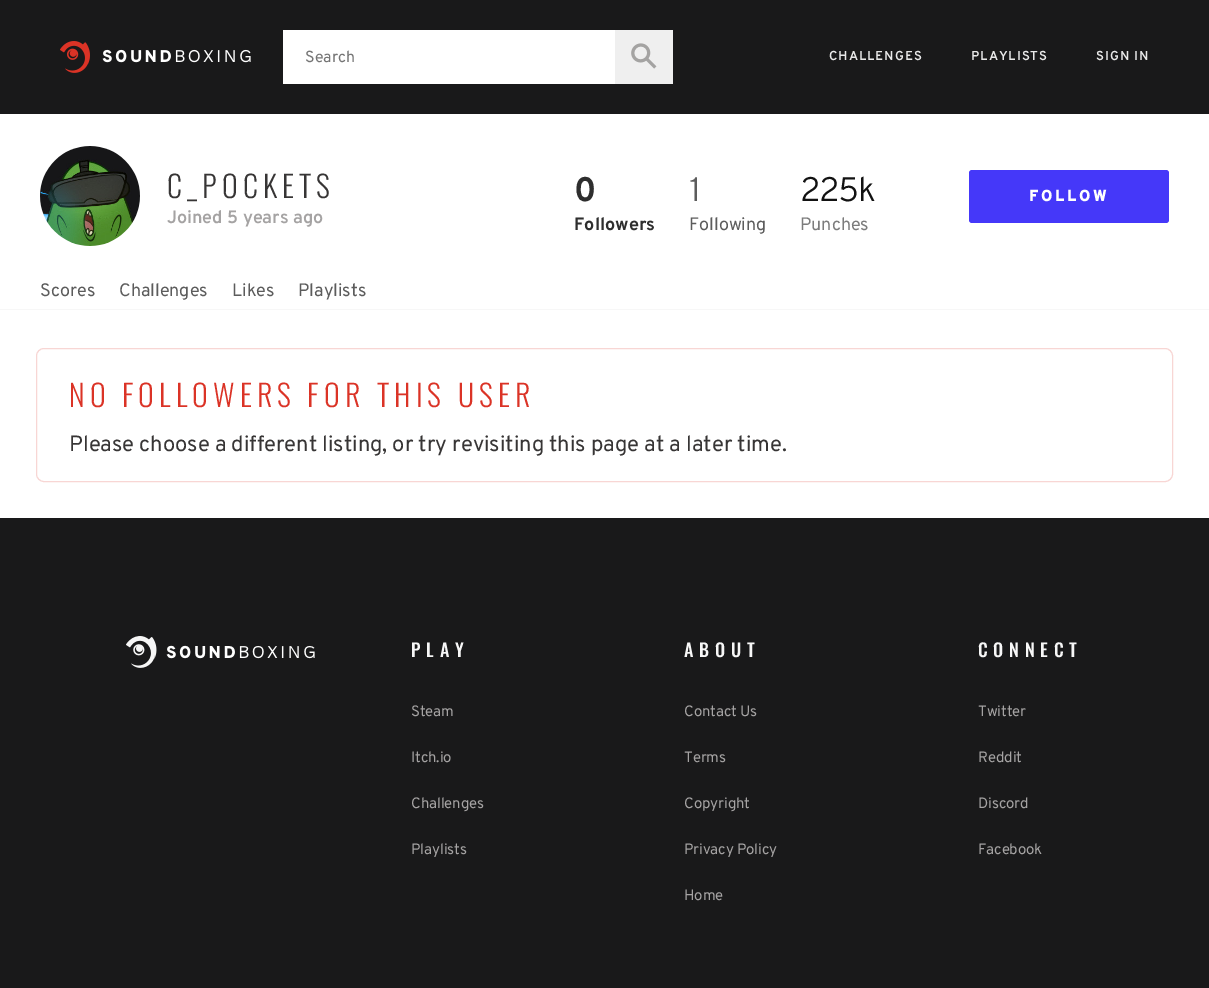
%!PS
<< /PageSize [1209 988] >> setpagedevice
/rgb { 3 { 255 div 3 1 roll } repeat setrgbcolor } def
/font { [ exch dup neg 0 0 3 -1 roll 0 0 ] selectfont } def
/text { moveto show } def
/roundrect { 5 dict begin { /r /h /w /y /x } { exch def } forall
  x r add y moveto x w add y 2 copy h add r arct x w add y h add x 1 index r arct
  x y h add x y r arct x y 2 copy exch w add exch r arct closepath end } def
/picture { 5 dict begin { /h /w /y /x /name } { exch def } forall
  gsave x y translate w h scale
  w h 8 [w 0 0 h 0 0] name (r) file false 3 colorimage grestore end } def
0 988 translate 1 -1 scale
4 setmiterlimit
255 255 255 rgb
0 0 1209 988 rectfill
25 25 26 rgb
0 0 1209 114 rectfill
(img_01.rgb) 60 41 191 32 picture
255 255 255 rgb
283 30 332 54 rectfill
239 239 239 rgb
615 30 58 54 rectfill
(img_02.rgb) 631 43 26 26 picture
(img_03.rgb) 40 146 100 100 picture
69 56 249 rgb
969 170 200 53 3 roundrect fill
247 247 247 rgb
0 309 1209 1 rectfill
248 214 212 rgb
36.5 348.5 1136 133 7.5 roundrect stroke
25 25 26 rgb
0 518 1209 470 rectfill
(img_04.rgb) 126 636 189 32 picture
/Overpass-Regular 16 font
117 117 117 rgb
(Search) 305 62 text
/Overpass-SemiBold 13 font
233 233 233 rgb
829 60 moveto 1 0 (CHALLENGES) ashow
971 60 moveto 1 0 (PLAYLISTS) ashow
1096 60 moveto 1 0 (SIGN IN) ashow
/Oswald-Light 30 font
55 53 53 rgb
167 198 moveto 5.1 0 (C_POCKETS) ashow
/Overpass-SemiBold 18 font
165 163 163 rgb
(Joined 5 years ago) 167 223 text
/Overpass-Bold 34 font
46 46 46 rgb
574 201 moveto -1.5 0 (0) ashow
/Overpass-Bold 18 font
(Followers) 574 230 text
/Overpass-Light 34 font
92 92 92 rgb
689 201 moveto -1.5 0 (1) ashow
/Overpass-Regular 18 font
(Following) 689 230 text
/Overpass-Light 34 font
18 18 18 rgb
800 201 moveto -1.5 0 (225k) ashow
/Overpass-Regular 18 font
124 124 124 rgb
(Punches) 800 230 text
/Overpass-Black 16 font
255 255 255 rgb
1029 201 moveto 2.75 0 (FOLLOW) ashow
/Overpass-Regular 18 font
92 92 92 rgb
(Scores) 40 296 text
(Challenges) 119 296 text
(Likes) 232 296 text
(Playlists) 298 296 text
/Oswald-Light 30 font
219 51 38 rgb
69 407 moveto 5.1 0 (NO FOLLOWERS FOR THIS USER) ashow
/Overpass-Regular 22 font
55 53 53 rgb
(Please choose a different listing, or try revisiting this page at a later time.) 69 451 text
/Oswald-Medium 18 font
247 247 247 rgb
411 657 moveto 5.75 0 (PLAY) ashow
/Overpass-Regular 15 font
165 163 163 rgb
411 716 moveto -0.1 0 (Steam) ashow
411 762 moveto -0.1 0 (Itch.io) ashow
411 808 moveto -0.1 0 (Challenges) ashow
411 854 moveto -0.1 0 (Playlists) ashow
/Oswald-Medium 18 font
247 247 247 rgb
684 657 moveto 5.75 0 (ABOUT) ashow
/Overpass-Regular 15 font
165 163 163 rgb
684 716 moveto -0.1 0 (Contact Us) ashow
684 762 moveto -0.1 0 (Terms) ashow
684 808 moveto -0.1 0 (Copyright) ashow
684 854 moveto -0.1 0 (Privacy Policy) ashow
684 900 moveto -0.1 0 (Home) ashow
/Oswald-Medium 18 font
247 247 247 rgb
978 657 moveto 5.75 0 (CONNECT) ashow
/Overpass-Regular 15 font
165 163 163 rgb
978 716 moveto -0.1 0 (Twitter) ashow
978 762 moveto -0.1 0 (Reddit) ashow
978 808 moveto -0.1 0 (Discord) ashow
978 854 moveto -0.1 0 (Facebook) ashow
showpage
